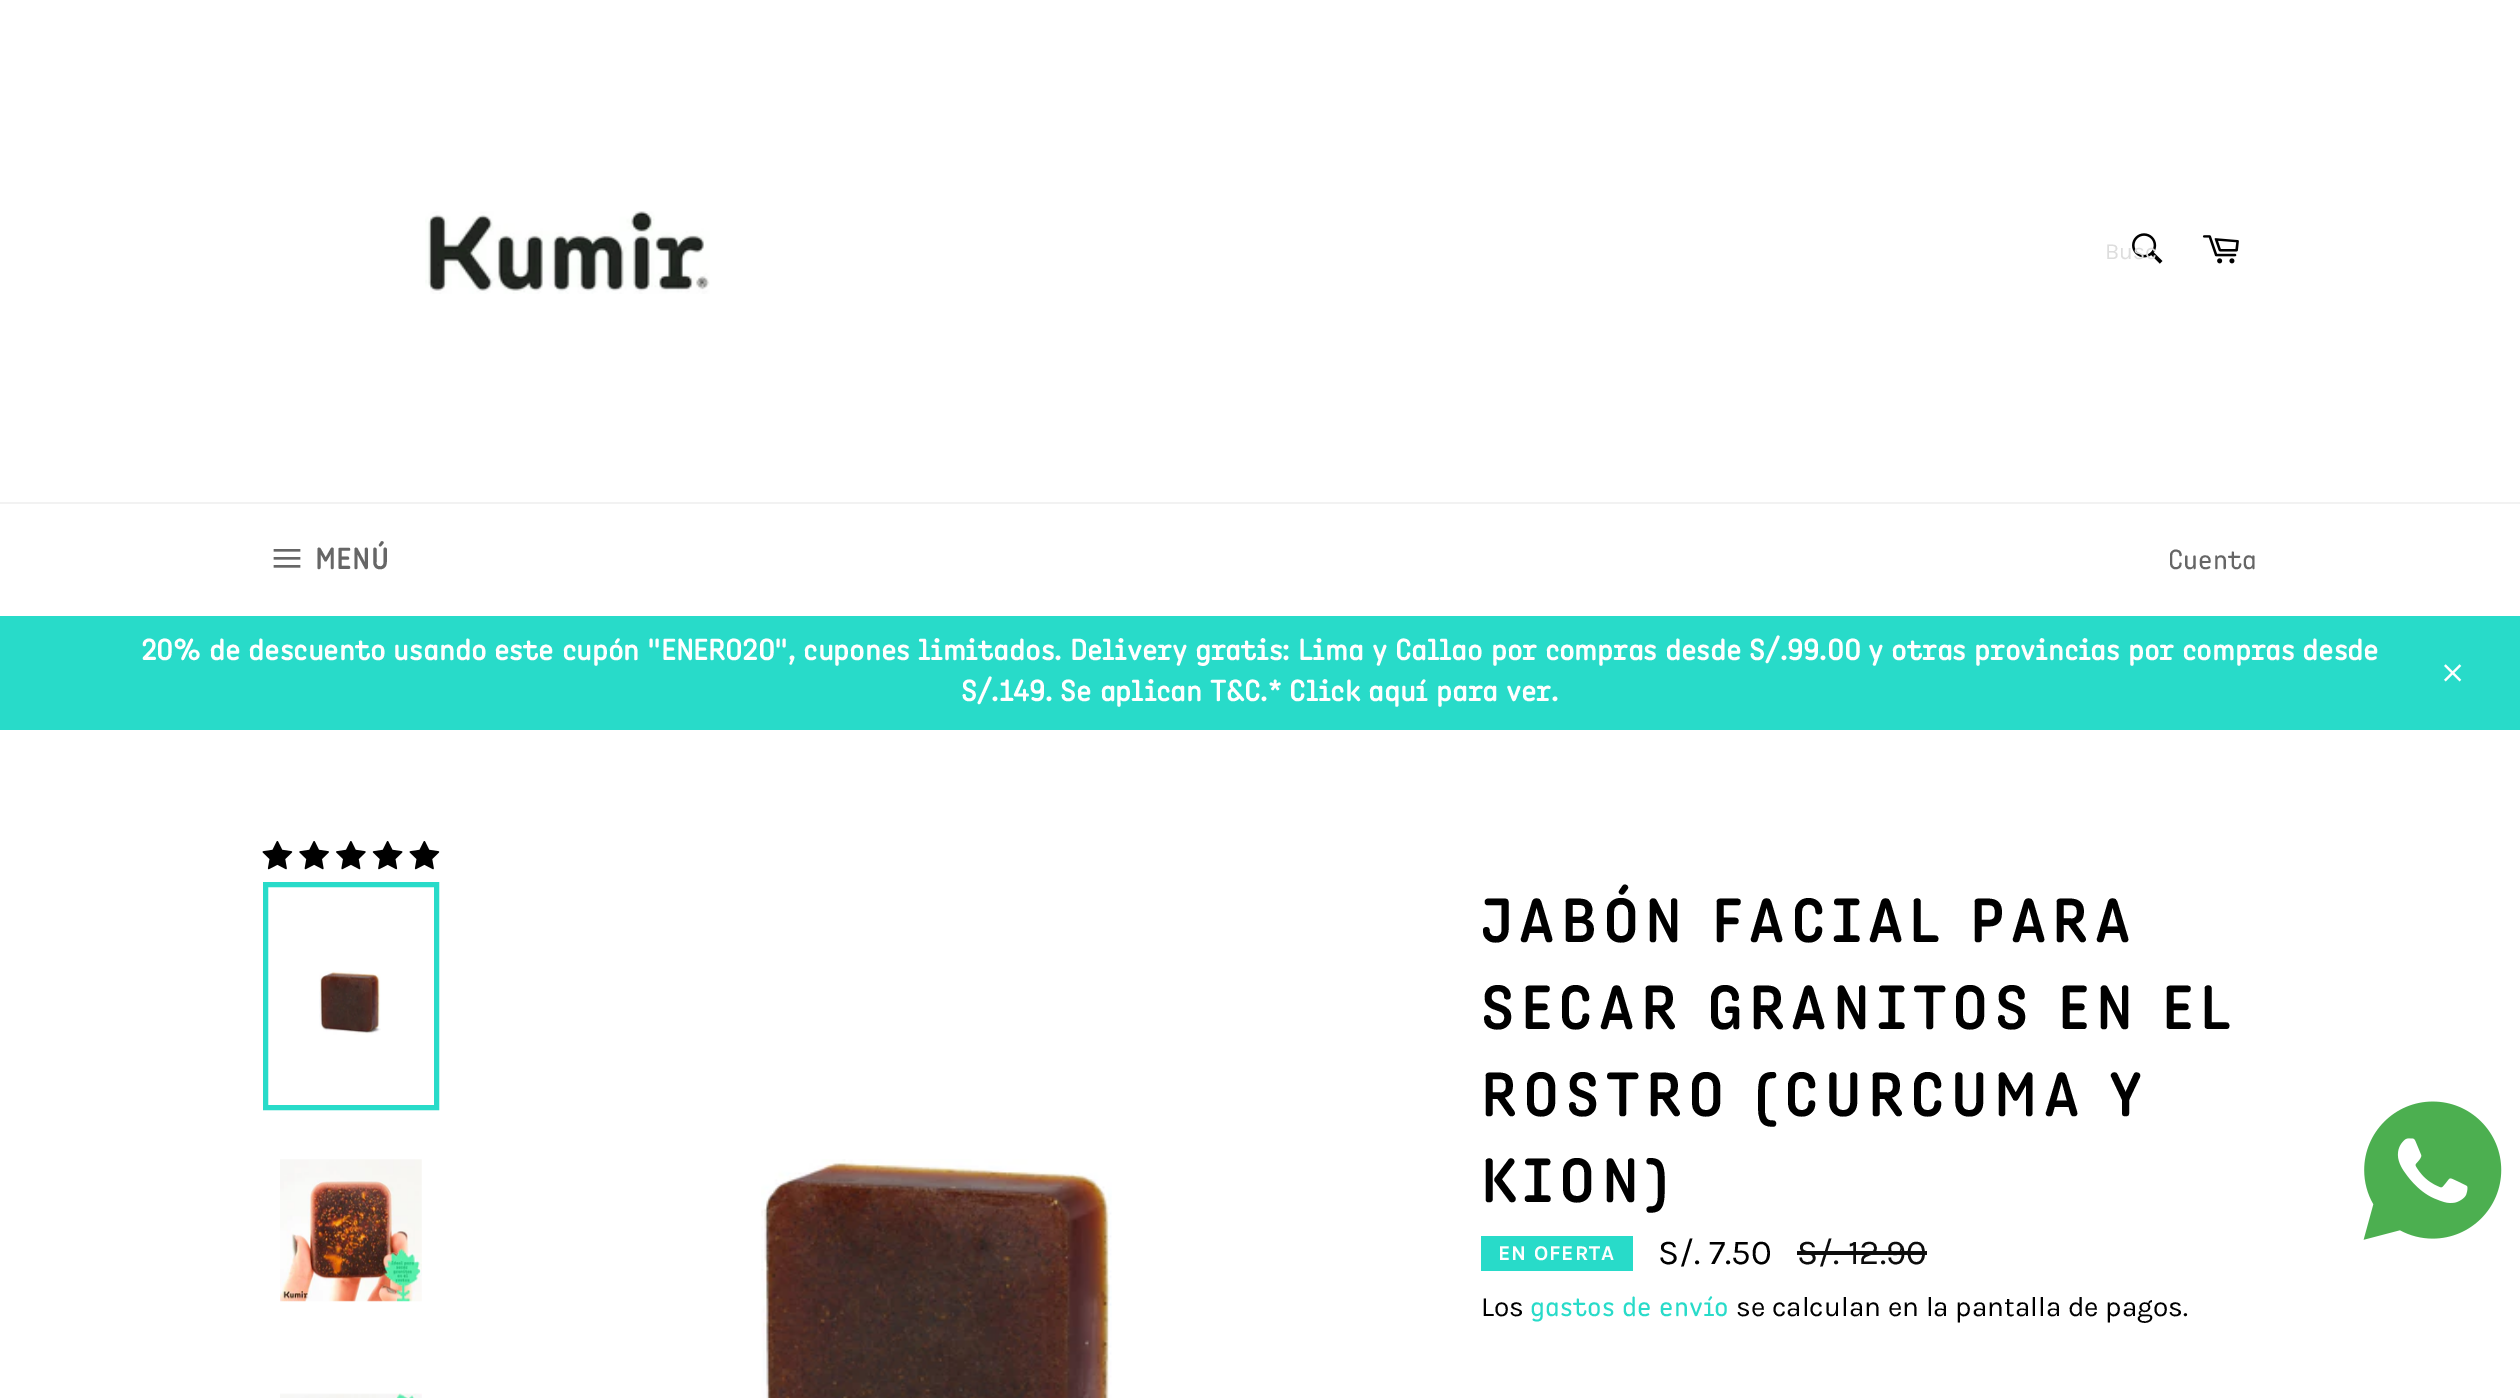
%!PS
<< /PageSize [2520 1398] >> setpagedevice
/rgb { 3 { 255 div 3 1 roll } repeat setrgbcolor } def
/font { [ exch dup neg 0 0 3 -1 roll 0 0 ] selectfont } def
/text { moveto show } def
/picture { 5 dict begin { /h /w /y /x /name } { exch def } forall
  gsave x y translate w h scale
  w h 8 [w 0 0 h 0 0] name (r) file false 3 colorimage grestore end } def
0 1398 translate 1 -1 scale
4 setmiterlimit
255 255 255 rgb
0 0 2520 1398 rectfill
(img_01.rgb) 425 211 285 83 picture
(img_02.rgb) 2132 233 31 31 picture
(img_03.rgb) 2202 235 37 29 picture
242 242 242 rgb
0 502 2520 2 rectfill
(img_04.rgb) 273 549 28 19 picture
40 219 201 rgb
0 616 2520 114 rectfill
(img_05.rgb) 2444 664 18 18 picture
(img_06.rgb) 262 841 31 29 picture
(img_07.rgb) 299 841 30 29 picture
(img_08.rgb) 336 841 30 29 picture
(img_09.rgb) 372 841 31 29 picture
(img_06.rgb) 409 841 31 29 picture
(img_10.rgb) 319 971 62 64 picture
5 setlinewidth
265.5 884.5 171 223 rectstroke
(img_11.rgb) 280 1159 142 143 picture
(img_12.rgb) 280 1393 142 5 picture
(img_13.rgb) 761 1159 351 239 picture
1481 1236 152 35 rectfill
13 13 13 rgb
1797 1251 130 4 rectfill
(img_14.rgb) 2363 1101 139 139 picture
/Karla-Regular 23 font
221 221 221 rgb
(Busc) 2105 259 text
/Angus-Bold 29.75 font
102 102 102 rgb
315 569 moveto 1 0 (MENÚ) ashow
/Angus-Regular 28 font
(Cuenta) 2168 569 text
/Angus-Bold 29.75 font
255 255 255 rgb
(20% de descuento usando este cupón "ENERO20", cupones limitados. Delivery gratis: Lima y Callao por compras desde S/.99.00 y otras provincias por compras desde) 141 660 text
(S/.149. Se aplican T&C.* Click aquí para ver.) 961 701 text
/Angus-Medium 63 font
0 0 0 rgb
1481 942 moveto 6.25 0 (JABÓN FACIAL PARA) ashow
1481 1029 moveto 6.25 0 (SECAR GRANITOS EN EL) ashow
1481 1116 moveto 6.25 0 (ROSTRO \(CURCUMA Y) ashow
1481 1202 moveto 6.25 0 (KION\)) ashow
/Karla-Bold 21 font
255 255 255 rgb
1498 1260 moveto 1 0 (EN OFERTA) ashow
/Karla-Regular 35 font
0 0 0 rgb
(S/. 7.50) 1658 1264 text
13 13 13 rgb
(S/. 12.90) 1797 1264 text
/Karla-Regular 28 font
0 0 0 rgb
(Los) 1481 1316 text
/Angus-Regular 28 font
40 219 201 rgb
(gastos de envío) 1530 1316 text
/Karla-Regular 28 font
0 0 0 rgb
(se calculan en la pantalla de pagos.) 1736 1316 text
showpage
